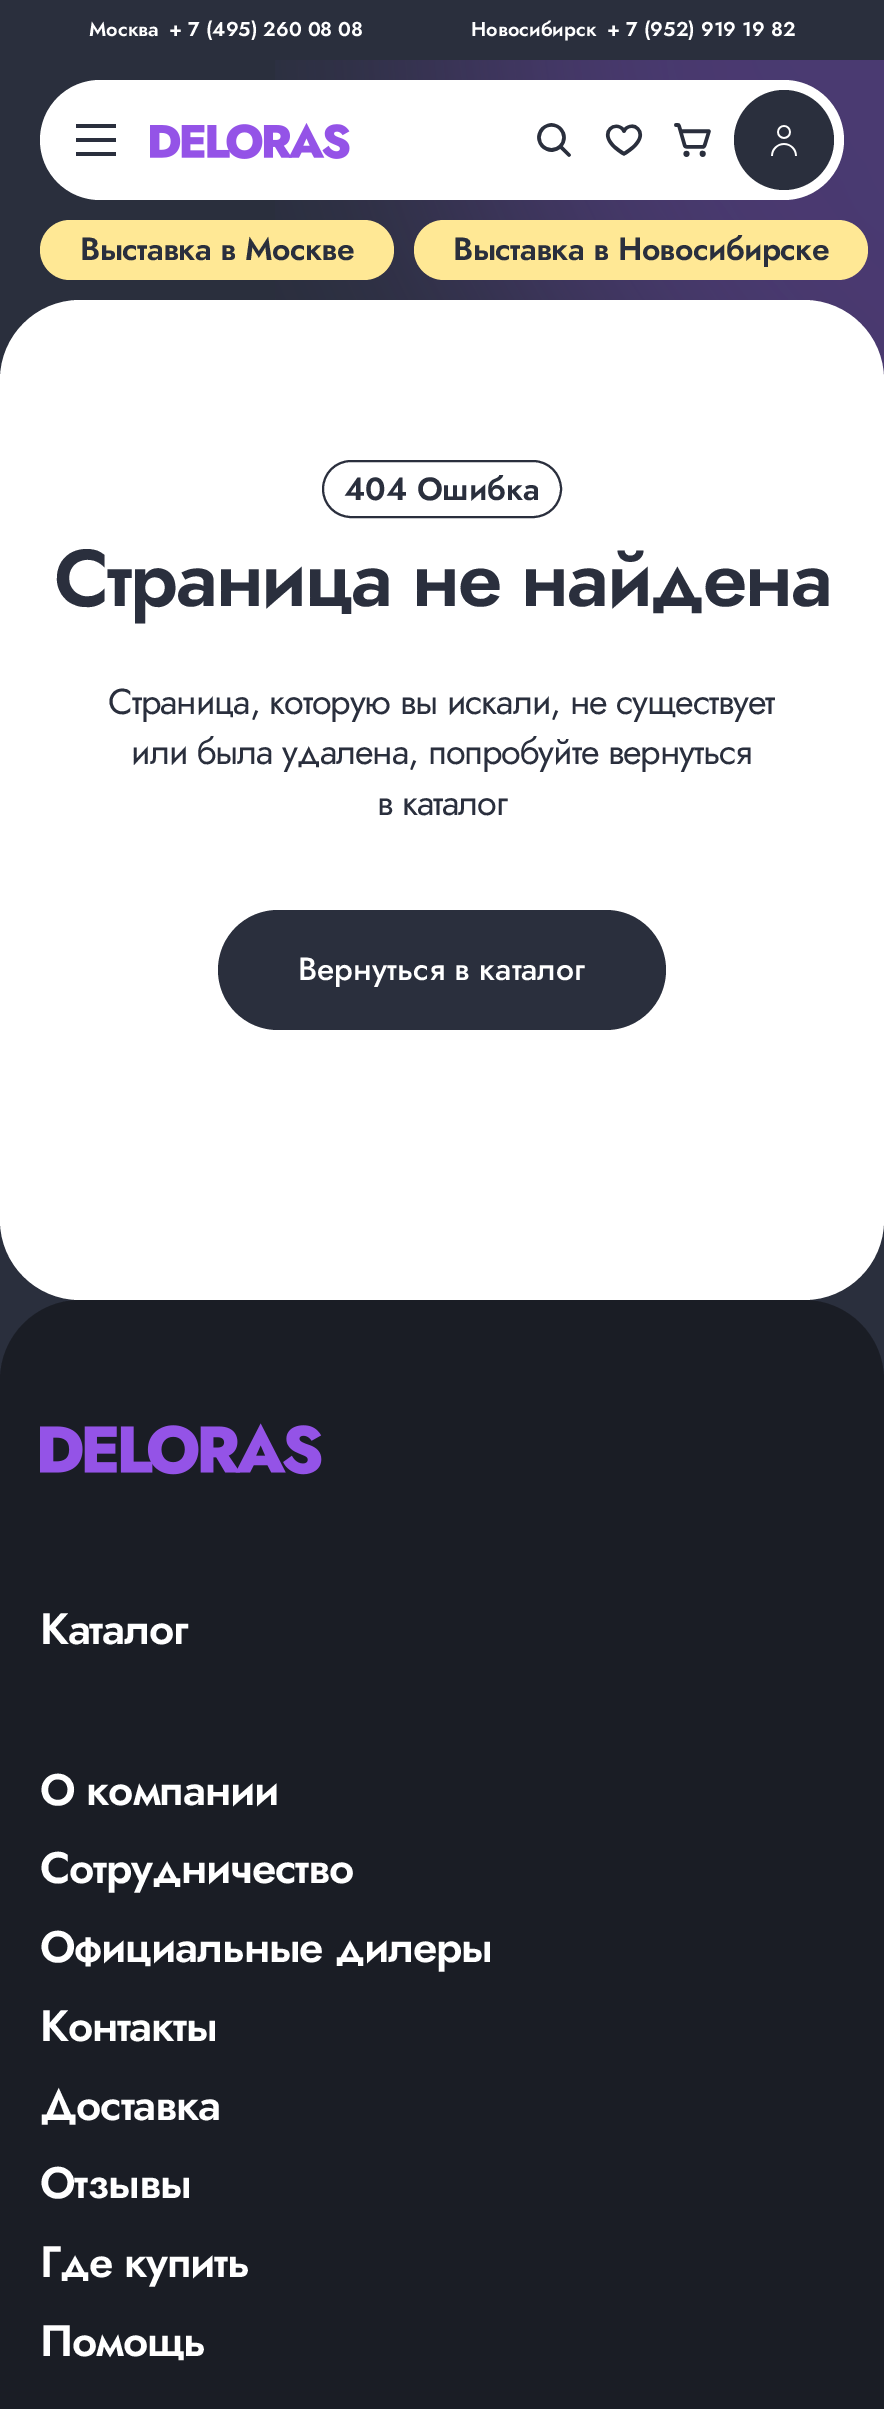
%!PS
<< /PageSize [884 2409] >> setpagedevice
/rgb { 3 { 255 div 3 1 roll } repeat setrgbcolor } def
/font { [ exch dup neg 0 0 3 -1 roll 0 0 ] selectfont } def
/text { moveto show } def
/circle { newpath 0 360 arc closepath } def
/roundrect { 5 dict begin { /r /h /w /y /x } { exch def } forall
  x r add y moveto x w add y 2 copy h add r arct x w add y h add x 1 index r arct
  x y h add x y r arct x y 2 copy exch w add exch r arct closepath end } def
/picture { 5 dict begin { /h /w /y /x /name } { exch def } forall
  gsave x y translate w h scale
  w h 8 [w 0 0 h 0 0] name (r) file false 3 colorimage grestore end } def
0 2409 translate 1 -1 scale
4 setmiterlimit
42 47 61 rgb
0 0 884 2409 rectfill
(img_06.rgb) 275 60 609 320 picture
255 255 255 rgb
40 80 804 120 60 roundrect fill
42 47 61 rgb
76 124 40 4 rectfill
76 138 40 4 rectfill
76 152 40 4 rectfill
(img_01.rgb) 150 123 200 36 picture
(img_02.rgb) 537 123 34 34 picture
(img_03.rgb) 605 124 38 32 picture
(img_04.rgb) 674 123 37 34 picture
784 140 50 circle fill
(img_05.rgb) 771 125 26 31 picture
255 232 149 rgb
40 220 354 60 30 roundrect fill
414 220 454 60 30 roundrect fill
255 255 255 rgb
0 300 884 1000 80 roundrect fill
42 47 61 rgb
2 setlinewidth
323 461 238 56 28 roundrect stroke
218 910 448 120 60 roundrect fill
26 29 37 rgb
80 1300 moveto 724 0 rlineto 44 0 80 36 80 80 rcurveto 0 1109 rlineto -884 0 rlineto 0 -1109 rlineto 0 -44 36 -80 80 -80 rcurveto closepath fill
(img_07.rgb) 40 1423 282 52 picture
/Jost-SemiBold 20 font
255 255 255 rgb
(Москва) 89 36 text
(+ 7 \(495\) 260 08 08) 169 36 text
(Новосибирск) 471 36 text
(+ 7 \(952\) 919 19 82) 607 36 text
/Jost-SemiBold 32 font
42 47 61 rgb
80 260 moveto -0.6 0 (Выставка в Москве) ashow
453 260 moveto -0.6 0 (Выставка в Новосибирске) ashow
(404 Ошибка) 344 500 text
/Jost-SemiBold 80 font
54 606 moveto -2.4 0 (Страница не найдена) ashow
/Jost-Regular 36 font
108 714 moveto -1.1 0 (Страница, которую вы искали, не существует) ashow
131 764 moveto -1.1 0 (или была удалена, попробуйте вернуться) ashow
377 815 moveto -1.1 0 (в каталог) ashow
/Jost-Medium 32 font
255 255 255 rgb
(Вернуться в каталог) 298 980 text
/Jost-SemiBold 44 font
40 1644 moveto -1.3 0 (Каталог) ashow
40 1805 moveto -1.3 0 (О компании) ashow
40 1883 moveto -1.3 0 (Сотрудничество) ashow
40 1962 moveto -1.3 0 (Официальные дилеры) ashow
40 2041 moveto -1.3 0 (Контакты) ashow
40 2120 moveto -1.3 0 (Доставка) ashow
40 2198 moveto -1.3 0 (Отзывы) ashow
40 2277 moveto -1.3 0 (Где купить) ashow
40 2356 moveto -1.3 0 (Помощь) ashow
showpage
